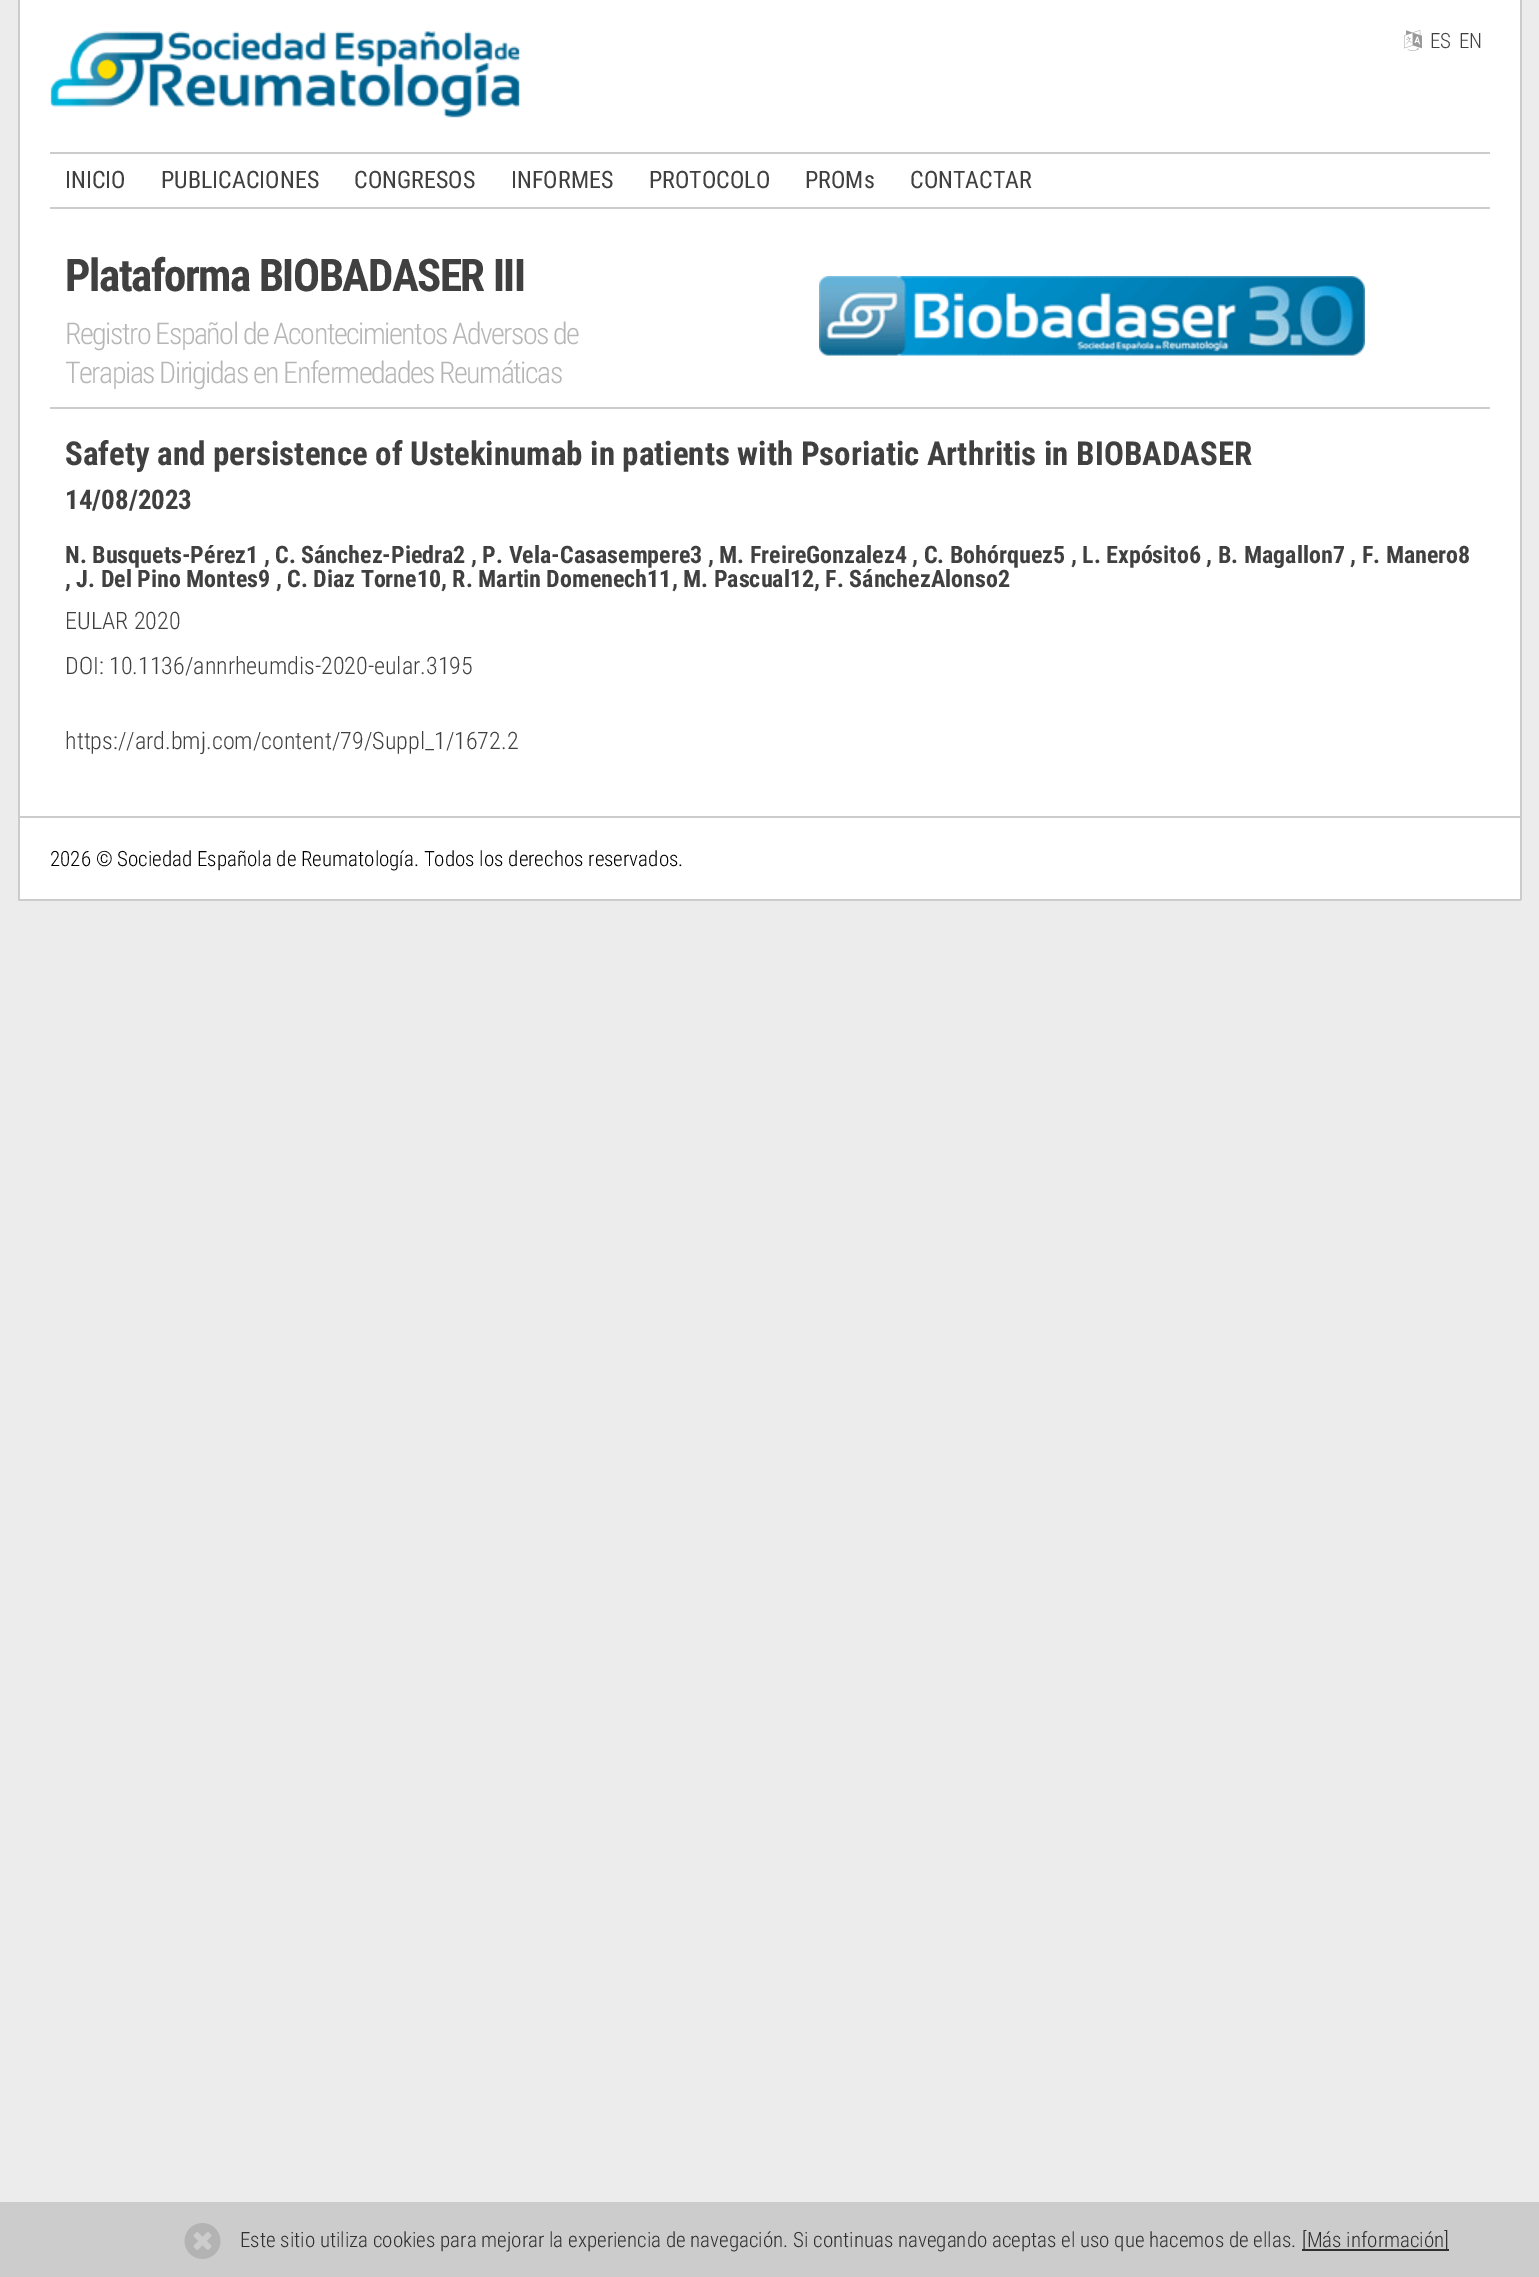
%!PS
<< /PageSize [1539 2277] >> setpagedevice
/rgb { 3 { 255 div 3 1 roll } repeat setrgbcolor } def
/font { [ exch dup neg 0 0 3 -1 roll 0 0 ] selectfont } def
/text { moveto show } def
/picture { 5 dict begin { /h /w /y /x /name } { exch def } forall
  gsave x y translate w h scale
  w h 8 [w 0 0 h 0 0] name (r) file false 3 colorimage grestore end } def
0 2277 translate 1 -1 scale
4 setmiterlimit
236 236 236 rgb
0 0 1539 2277 rectfill
255 255 255 rgb
20 0 1500 899 rectfill
204 204 204 rgb
1520 0 2 900 rectfill
18 899 1503 2 rectfill
18 0 2 900 rectfill
(img_01.rgb) 50 31 470 87 picture
(img_02.rgb) 1404 30 18 21 picture
50 152 1440 2 rectfill
50 207 1440 2 rectfill
50 407 1440 2 rectfill
(img_03.rgb) 819 276 546 80 picture
20 816 1500 2 rectfill
0 2202 1539 75 rectfill
(img_04.rgb) 184 2223 37 36 picture
48 48 48 rgb
1302 2249 147 2 rectfill
/RobotoCondensed-Light 21 font
64 64 64 rgb
(ES) 1430 48 text
(EN) 1459 48 text
/RobotoCondensed-Regular 24 font
(INICIO) 65 188 text
(PUBLICACIONES) 161 188 text
(CONGRESOS) 354 188 text
(INFORMES) 511 188 text
(PROTOCOLO) 649 188 text
(PROMs) 805 188 text
(CONTACTAR) 910 188 text
/RobotoCondensed-Bold 45 font
65 291 moveto -1.5 0 (Plataforma BIOBADASER III) ashow
/RobotoCondensed-Light 30 font
182 182 182 rgb
65 344 moveto -1.5 0 (Registro Español de Acontecimientos Adversos de) ashow
65 383 moveto -1.5 0 (Terapias Dirigidas en Enfermedades Reumáticas) ashow
/RobotoCondensed-Bold 33 font
64 64 64 rgb
(Safety and persistence of Ustekinumab in patients with Psoriatic Arthritis in BIOBADASER) 65 465 text
/RobotoCondensed-Bold 27 font
(14/08/2023) 65 509 text
/RobotoCondensed-Bold 24 font
(N. Busquets-Pérez1 , C. Sánchez-Piedra2 , P. Vela-Casasempere3 , M. FreireGonzalez4 , C. Bohórquez5 , L. Expósito6 , B. Magallon7 , F. Manero8) 65 563 text
(, J. Del Pino Montes9 , C. Diaz Torne10, R. Martin Domenech11, M. Pascual12, F. SánchezAlonso2) 65 587 text
/RobotoCondensed-Light 24 font
(EULAR 2020) 65 629 text
(DOI: 10.1136/annrheumdis-2020-eular.3195) 65 674 text
(https://ard.bmj.com/content/79/Suppl_1/1672.2) 65 749 text
/RobotoCondensed-Light 21 font
0 0 0 rgb
(2026 © Sociedad Española de Reumatología. Todos los derechos reservados.) 50 866 text
48 48 48 rgb
(Este sitio utiliza cookies para mejorar la experiencia de navegación. Si continuas navegando aceptas el uso que hacemos de ellas.) 240 2247 text
([Más información]) 1302 2247 text
showpage
